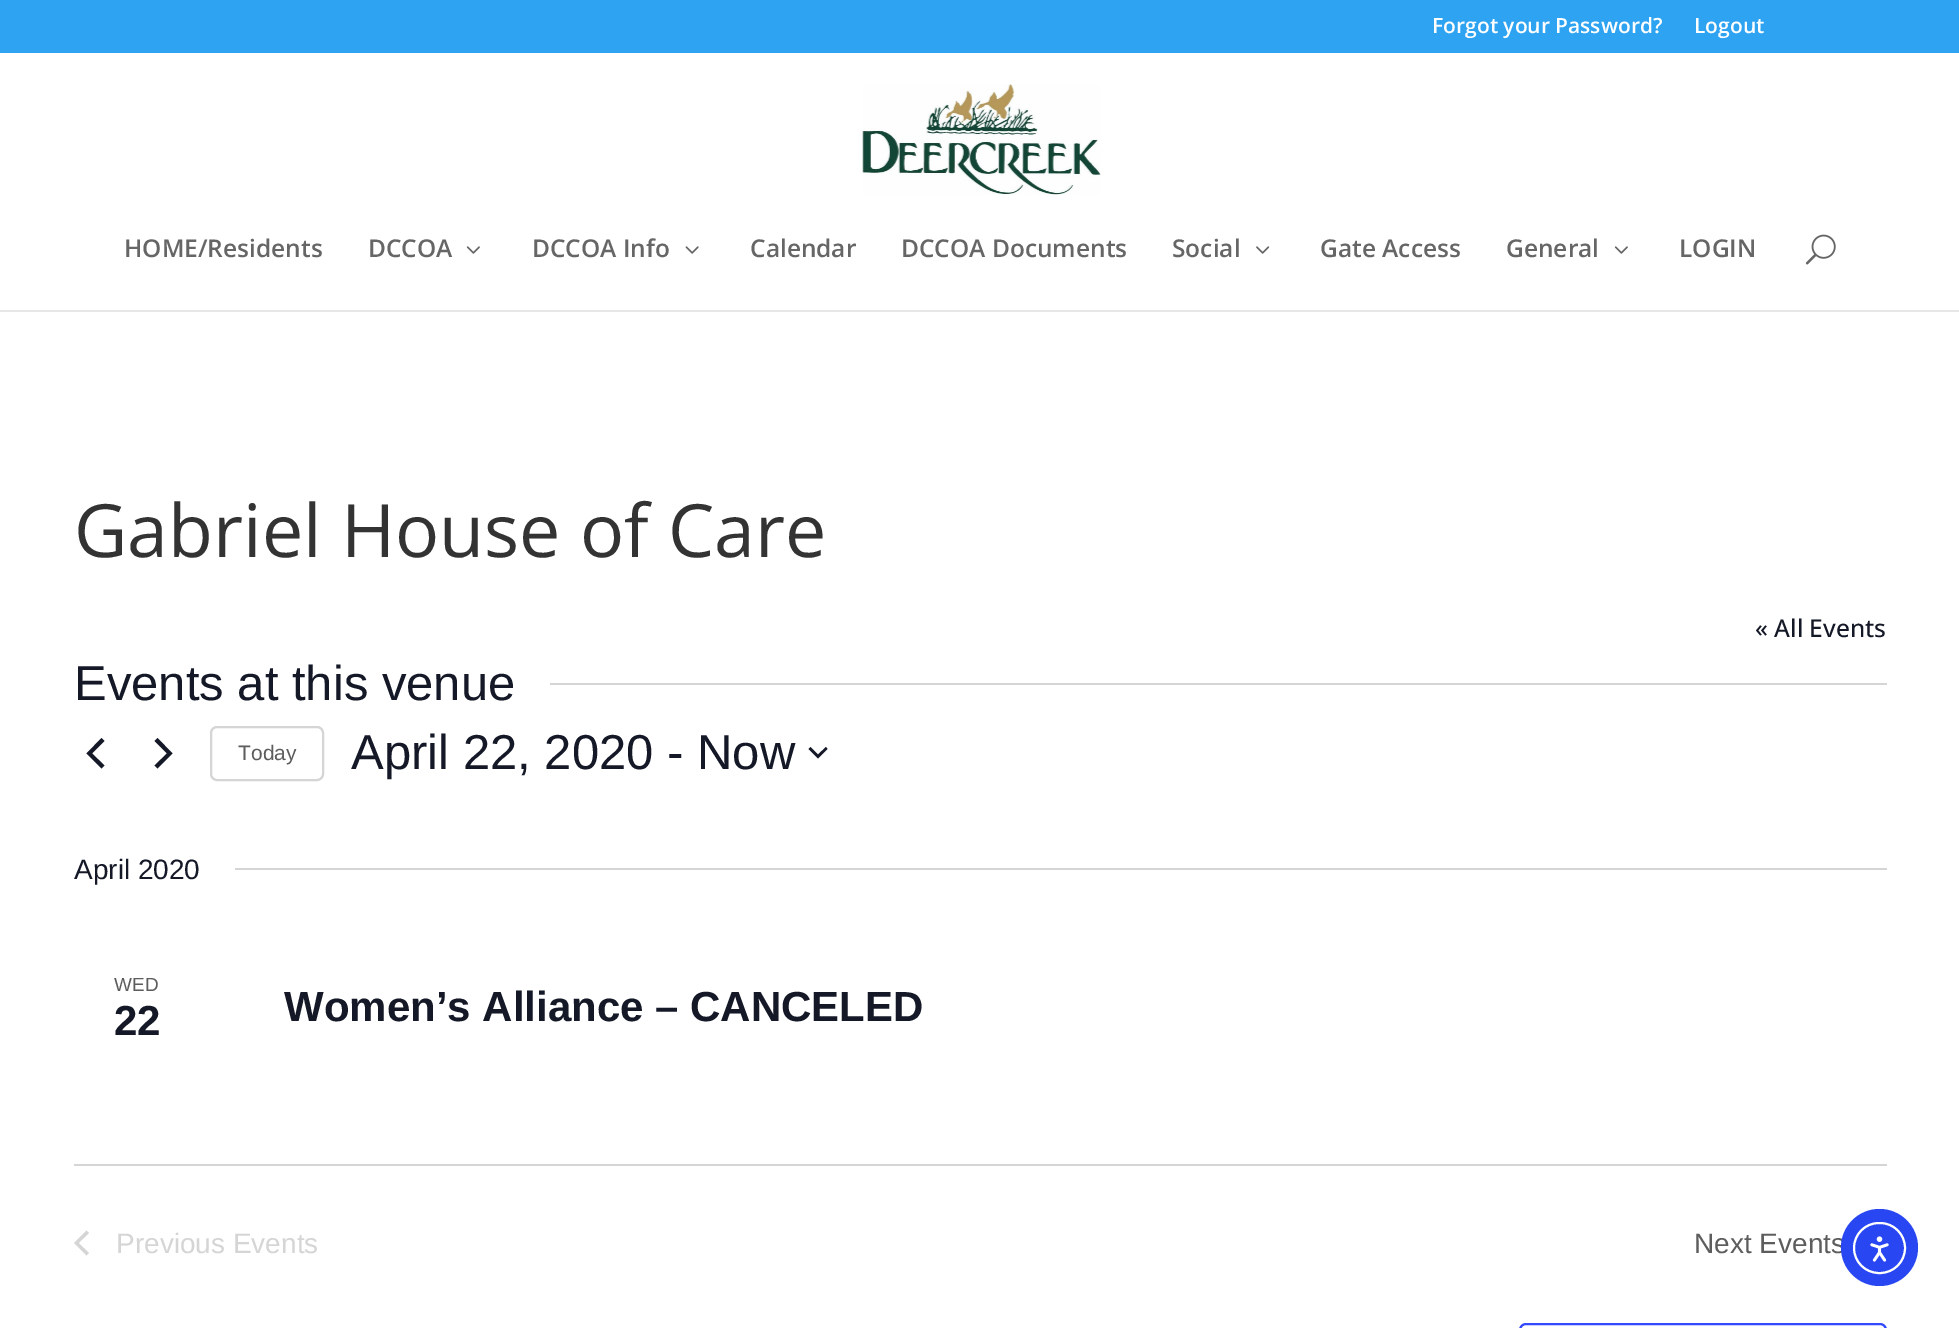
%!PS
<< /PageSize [1959 1328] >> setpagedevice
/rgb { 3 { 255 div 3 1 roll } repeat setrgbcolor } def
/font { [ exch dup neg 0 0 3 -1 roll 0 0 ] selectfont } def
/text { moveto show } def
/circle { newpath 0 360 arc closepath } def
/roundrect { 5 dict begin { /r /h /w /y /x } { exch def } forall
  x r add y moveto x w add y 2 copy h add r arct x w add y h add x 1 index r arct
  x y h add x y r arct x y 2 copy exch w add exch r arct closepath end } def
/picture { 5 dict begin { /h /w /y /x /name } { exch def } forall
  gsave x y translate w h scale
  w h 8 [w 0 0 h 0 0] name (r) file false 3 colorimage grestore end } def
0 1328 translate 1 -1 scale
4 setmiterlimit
255 255 255 rgb
0 0 1959 1328 rectfill
46 163 242 rgb
0 0 1959 53 rectfill
230 230 230 rgb
0 310 1959 2 rectfill
(img_01.rgb) 862 84 239 111 picture
(img_02.rgb) 466 246 14 8 picture
(img_03.rgb) 685 246 14 8 picture
(img_04.rgb) 1256 246 14 8 picture
(img_02.rgb) 1614 246 14 8 picture
(img_05.rgb) 1805 234 31 31 picture
213 213 213 rgb
550 683 1337 2 rectfill
20 24 39 rgb
104.5 765.5 moveto -3 3 rlineto -15 -15 rlineto 15 -15.5 rlineto 3 3 rlineto -12.5 12.5 rlineto closepath fill
154.5 741 moveto 3 -3 rlineto 15 15.5 rlineto -15 15 rlineto -3 -3 rlineto 12.5 -12 rlineto closepath fill
213 213 213 rgb
2 setlinewidth
211 727 112 53 6 roundrect stroke
20 24 39 rgb
810.5 747 moveto 7.5 7.5 rlineto 8 -7.5 rlineto 1.5 2 rlineto -9.5 9.5 rlineto -9.5 -9.5 rlineto closepath eofill
213 213 213 rgb
235 868 1652 2 rectfill
74 1164 1813 2 rectfill
89 1253 moveto -2.5 2.5 rlineto -12.5 -12.5 rlineto 12.5 -12.5 rlineto 2.5 2.5 rlineto -10.5 10 rlineto closepath fill
51 74 255 rgb
1520 1324 366 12 6 roundrect stroke
/OpenSans-SemiBold 21 font
255 255 255 rgb
(Forgot your Password?) 1432 33 text
(Logout) 1694 33 text
/OpenSans-SemiBold 24.5 font
102 102 102 rgb
(HOME/Residents) 124 257 text
(DCCOA) 368 257 text
(DCCOA Info) 532 257 text
(Calendar) 750 257 text
(DCCOA Documents) 901 257 text
(Social) 1172 257 text
(Gate Access) 1320 257 text
(General) 1506 257 text
(LOGIN) 1679 257 text
/OpenSans-Regular 73.5 font
51 51 51 rgb
(Gabriel House of Care) 74 557 text
/OpenSans-Medium 24.5 font
20 24 39 rgb
(« All Events) 1755 637 text
/LiberationSans-Regular 49 font
(Events at this venue) 74 700 text
/LiberationSans-Regular 21 font
93 93 93 rgb
(Today) 238 760 text
/LiberationSans-Regular 49 font
20 24 39 rgb
(April 22, 2020 - Now) 351 769 text
/LiberationSans-Regular 28 font
(April 2020) 74 879 text
/LiberationSans-Regular 19 font
93 93 93 rgb
(WED) 114 991 text
/LiberationSans-Bold 42 font
20 24 39 rgb
(22) 114 1035 text
(Women’s Alliance – CANCELED) 284 1021 text
/LiberationSans-Regular 28 font
213 213 213 rgb
(Previous Events) 116 1253 text
93 93 93 rgb
(Next Events) 1694 1253 text
40 71 243 rgb
1879.5 1247.5 38.5 circle fill
255 255 255 rgb
1854 1223 51 50 25 roundrect stroke
(img_06.rgb) 1870 1236 19 26 picture
showpage
